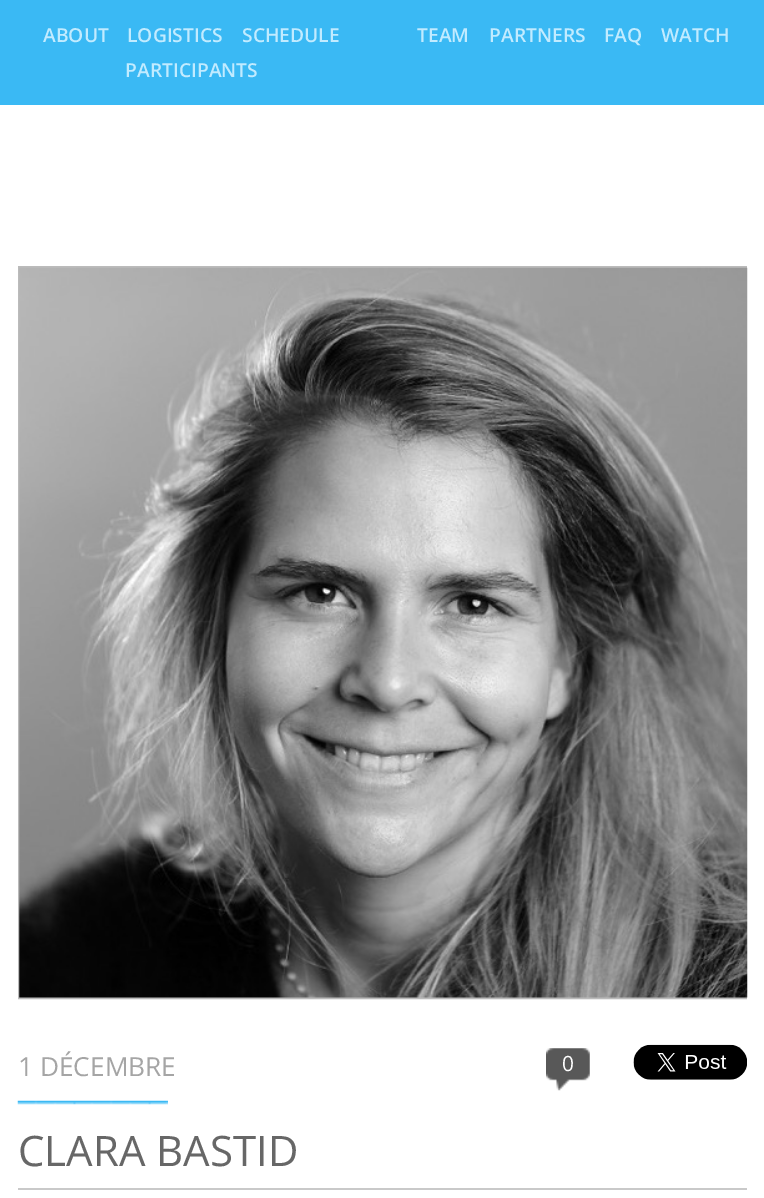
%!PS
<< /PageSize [764 1198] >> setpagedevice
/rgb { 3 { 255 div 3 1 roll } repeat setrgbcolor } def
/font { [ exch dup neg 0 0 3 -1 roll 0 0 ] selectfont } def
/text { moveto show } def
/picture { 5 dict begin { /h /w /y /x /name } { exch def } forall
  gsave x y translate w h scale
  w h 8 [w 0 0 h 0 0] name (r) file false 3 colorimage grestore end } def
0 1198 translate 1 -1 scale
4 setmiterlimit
255 255 255 rgb
0 0 764 1198 rectfill
58 185 244 rgb
0 0 764 105 rectfill
gsave
18 266 729 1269 rectclip
187 187 187 rgb
2 setlinewidth
19 267 731 731 rectstroke
grestore
(img_01.rgb) 19 267 729 731 picture
(img_02.rgb) 17 1100 151 5 picture
(img_03.rgb) 546 1048 44 43 picture
(img_04.rgb) 633 1044 114 36 picture
201 201 201 rgb
18 1188 729 2 rectfill
/OpenSans-SemiBold 19.25 font
193 235 255 rgb
(ABOUT) 43 42 text
(LOGISTICS) 127 42 text
(SCHEDULE) 242 42 text
(PARTICIPANTS) 125 77 text
(TEAM) 417 42 text
(PARTNERS) 489 42 text
(FAQ) 604 42 text
(WATCH) 661 42 text
/OpenSans-Regular 26.25 font
165 165 165 rgb
(1 DÉCEMBRE) 18 1076 text
/OpenSans-Regular 21 font
255 255 255 rgb
(0) 562 1071 text
/OpenSans-Regular 42 font
103 103 103 rgb
(CLARA BASTID) 18 1166 text
showpage
